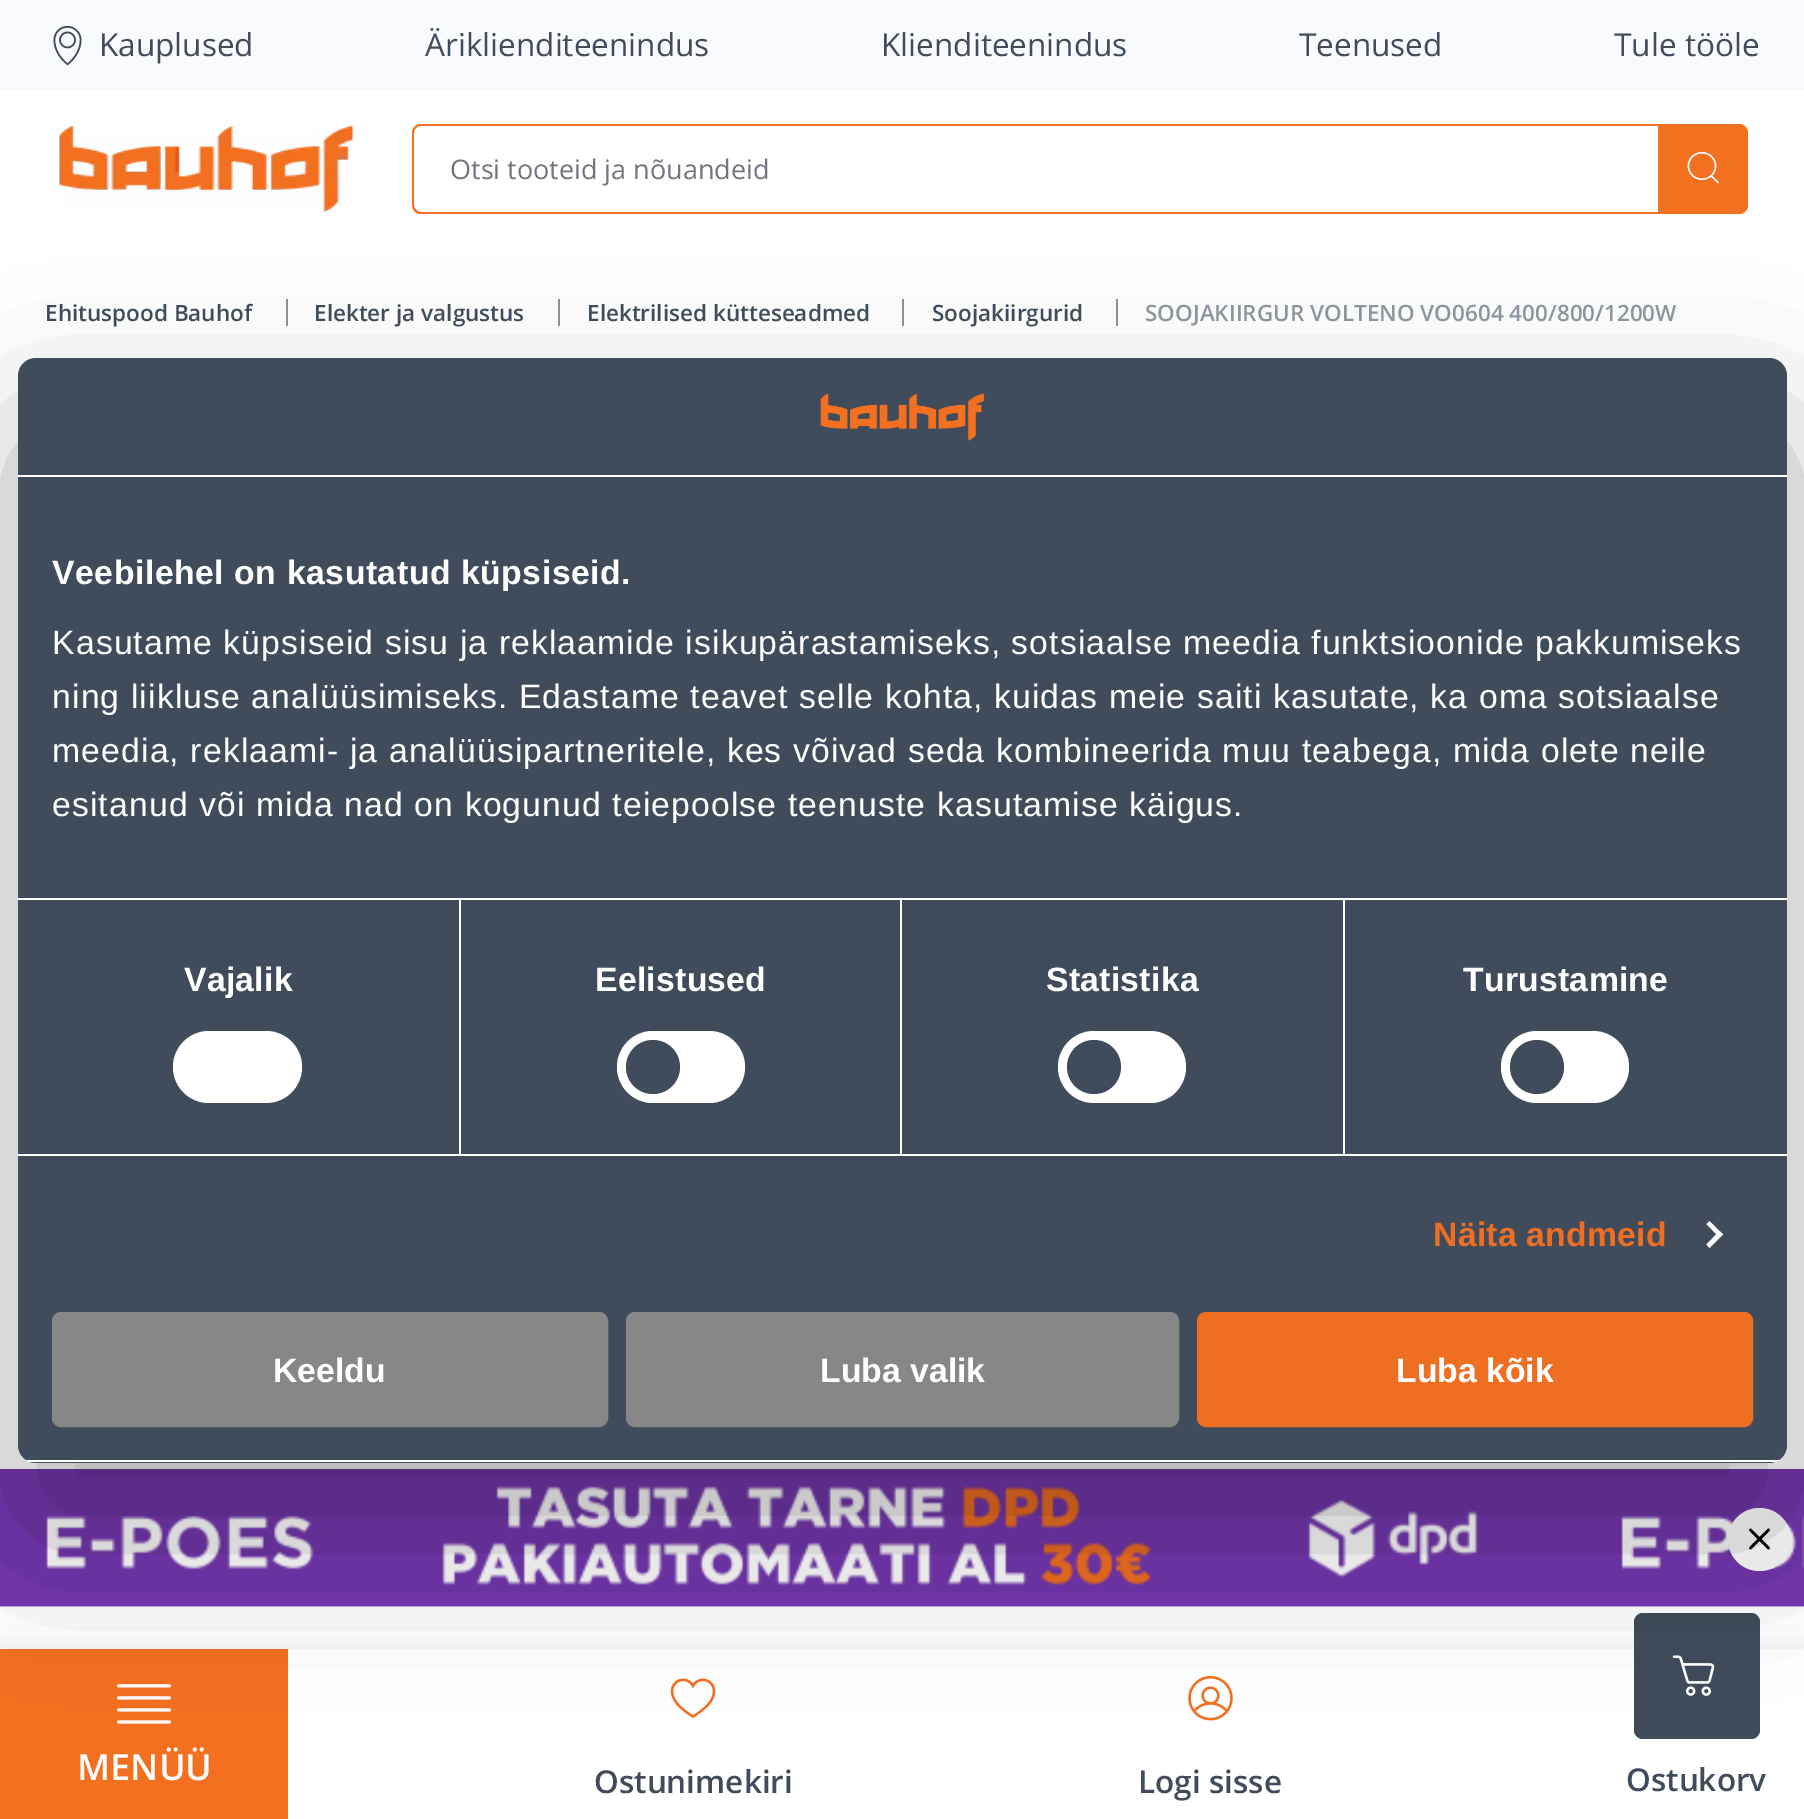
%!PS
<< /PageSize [1804 1819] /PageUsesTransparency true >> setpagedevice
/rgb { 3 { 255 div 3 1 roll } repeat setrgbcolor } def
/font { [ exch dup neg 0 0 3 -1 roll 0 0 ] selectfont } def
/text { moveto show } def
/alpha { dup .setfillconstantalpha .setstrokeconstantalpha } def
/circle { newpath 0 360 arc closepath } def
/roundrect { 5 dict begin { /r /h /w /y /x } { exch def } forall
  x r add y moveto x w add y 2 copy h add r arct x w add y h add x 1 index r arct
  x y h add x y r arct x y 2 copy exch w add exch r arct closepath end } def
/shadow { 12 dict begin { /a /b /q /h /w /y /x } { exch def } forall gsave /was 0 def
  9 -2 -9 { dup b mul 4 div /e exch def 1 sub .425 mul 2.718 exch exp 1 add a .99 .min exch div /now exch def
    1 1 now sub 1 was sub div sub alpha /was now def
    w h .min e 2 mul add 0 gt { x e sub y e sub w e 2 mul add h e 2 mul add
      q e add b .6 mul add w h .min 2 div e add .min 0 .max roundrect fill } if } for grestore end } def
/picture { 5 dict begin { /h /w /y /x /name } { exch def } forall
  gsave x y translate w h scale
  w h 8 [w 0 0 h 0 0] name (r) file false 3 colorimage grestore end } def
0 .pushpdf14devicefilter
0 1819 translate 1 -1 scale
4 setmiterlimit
255 255 255 rgb
0 0 1804 1819 rectfill
248 250 255 rgb
0 0 1804 90 rectfill
(img_01.rgb) 53 25 29 41 picture
(img_02.rgb) 59 125 295 88 picture
243 112 33 rgb
421 124 moveto 1237 0 rlineto 0 90 rlineto -1237 0 rlineto -5 0 -9 -4 -9 -9 rcurveto 0 -72 rlineto 0 -5 4 -9 9 -9 rcurveto closepath 421 126 moveto 1237 0 rlineto 0 86 rlineto -1237 0 rlineto -4 0 -7 -4 -7 -7 rcurveto 0 -72 rlineto 0 -4 3 -7 7 -7 rcurveto closepath eofill
1658 124 moveto 81 0 rlineto 5 0 9 4 9 9 rcurveto 0 72 rlineto 0 5 -4 9 -9 9 rcurveto -81 0 rlineto closepath fill
(img_03.rgb) 1687 151 32 33 picture
141 143 154 rgb
0 1645 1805 171 0 11 0.15 shadow
255 255 255 rgb
288 1649 1516 170 rectfill
243 112 33 rgb
0 1649 288 170 rectfill
(img_04.rgb) 117 1684 54 40 picture
(img_05.rgb) 670 1678 46 40 picture
(img_06.rgb) 1188 1675 45 46 picture
64 76 91 rgb
1634 1613 126 126 9 roundrect fill
(img_07.rgb) 1672 1655 43 41 picture
140 148 157 rgb
286 299 2 27 rectfill
558 299 2 27 rectfill
902 299 2 27 rectfill
1116 299 2 27 rectfill
(img_08.rgb) 0 1469 1804 138 picture
255 255 255 rgb
1759.5 1539.5 31.5 circle fill
(img_09.rgb) 1749 1528 21 22 picture
0 0 0 rgb
18 430 1769 1105 18 76.5 0.3 shadow
64 76 91 rgb
18 358 1769 1105 18 roundrect fill
255 255 255 rgb
18 475 1769 2 rectfill
(img_10.rgb) 820 393 165 48 picture
18 898 1769 2 rectfill
18 1154 1769 2 rectfill
459 900 2 254 rectfill
173 1031 129 72 36 roundrect fill
900 900 2 254 rectfill
617 1031 128 72 36 roundrect fill
64 76 91 rgb
653 1067 27 circle fill
255 255 255 rgb
1343 900 2 254 rectfill
1058 1031 128 72 36 roundrect fill
64 76 91 rgb
1094 1067 27 circle fill
255 255 255 rgb
1501 1031 128 72 36 roundrect fill
64 76 91 rgb
1537 1067 27 circle fill
255 255 255 rgb
1709.5 1221 moveto 13.5 13.5 rlineto -3.5 3 rlineto -13 -13.5 rlineto closepath fill
1719.5 1231 moveto 3.5 3.5 rlineto -13.5 13.5 rlineto -3 -3.5 rlineto closepath fill
gsave
18 358 1769 1105 18 roundrect clip newpath
18 1460 1769 2 rectfill
grestore
135 135 135 rgb
54.5 1314.5 551 110 6.5 roundrect gsave fill grestore
5 setlinewidth
stroke
628.5 1314.5 548 110 6.5 roundrect gsave fill grestore
stroke
238 111 33 rgb
1199.5 1314.5 551 110 6.5 roundrect gsave fill grestore
stroke
/OpenSans-Regular 31.5 font
64 76 91 rgb
(Kauplused) 99 56 text
(Äriklienditeenindus) 425 56 text
(Klienditeenindus) 881 56 text
(Teenused) 1299 56 text
(Tule tööle) 1614 56 text
/OpenSans-Regular 27 font
114 117 126 rgb
(Otsi tooteid ja nõuandeid) 450 179 text
/OpenSans-SemiBold 36 font
255 255 255 rgb
(MENÜÜ) 77 1780 text
/OpenSans-SemiBold 31.5 font
64 76 91 rgb
(Ostunimekiri) 594 1793 text
(Logi sisse) 1138 1793 text
(Ostukorv) 1626 1791 text
/OpenSans-SemiBold 22.5 font
(Ehituspood Bauhof) 45 321 text
(Elekter ja valgustus) 314 321 text
(Elektrilised kütteseadmed) 587 321 text
(Soojakiirgurid) 932 321 text
140 148 157 rgb
(SOOJAKIIRGUR VOLTENO VO0604 400/800/1200W) 1145 321 text
/LiberationSans-Bold 33.75 font
255 255 255 rgb
52 584 moveto 0.55 0 (Veebilehel on kasutatud küpsiseid.) ashow
/LiberationSans-Regular 33.75 font
52 654 moveto 1.12 0 (Kasutame küpsiseid sisu ja reklaamide isikupärastamiseks, sotsiaalse meedia funktsioonide pakkumiseks) ashow
52 708 moveto 1.12 0 (ning liikluse analüüsimiseks. Edastame teavet selle kohta, kuidas meie saiti kasutate, ka oma sotsiaalse) ashow
52 762 moveto 1.12 0 (meedia, reklaami- ja analüüsipartneritele, kes võivad seda kombineerida muu teabega, mida olete neile) ashow
52 816 moveto 1.12 0 (esitanud või mida nad on kogunud teiepoolse teenuste kasutamise käigus.) ashow
/LiberationSans-Bold 33.75 font
184 991 moveto 0.25 0 (Vajalik) ashow
595 991 moveto 0.25 0 (Eelistused) ashow
1046 991 moveto 0.25 0 (Statistika) ashow
1463 991 moveto 0.25 0 (Turustamine) ashow
238 111 33 rgb
1433 1246 moveto 0.25 0 (Näita andmeid) ashow
255 255 255 rgb
(Keeldu) 273 1382 text
(Luba valik) 820 1382 text
(Luba kõik) 1396 1382 text
.poppdf14devicefilter showpage
